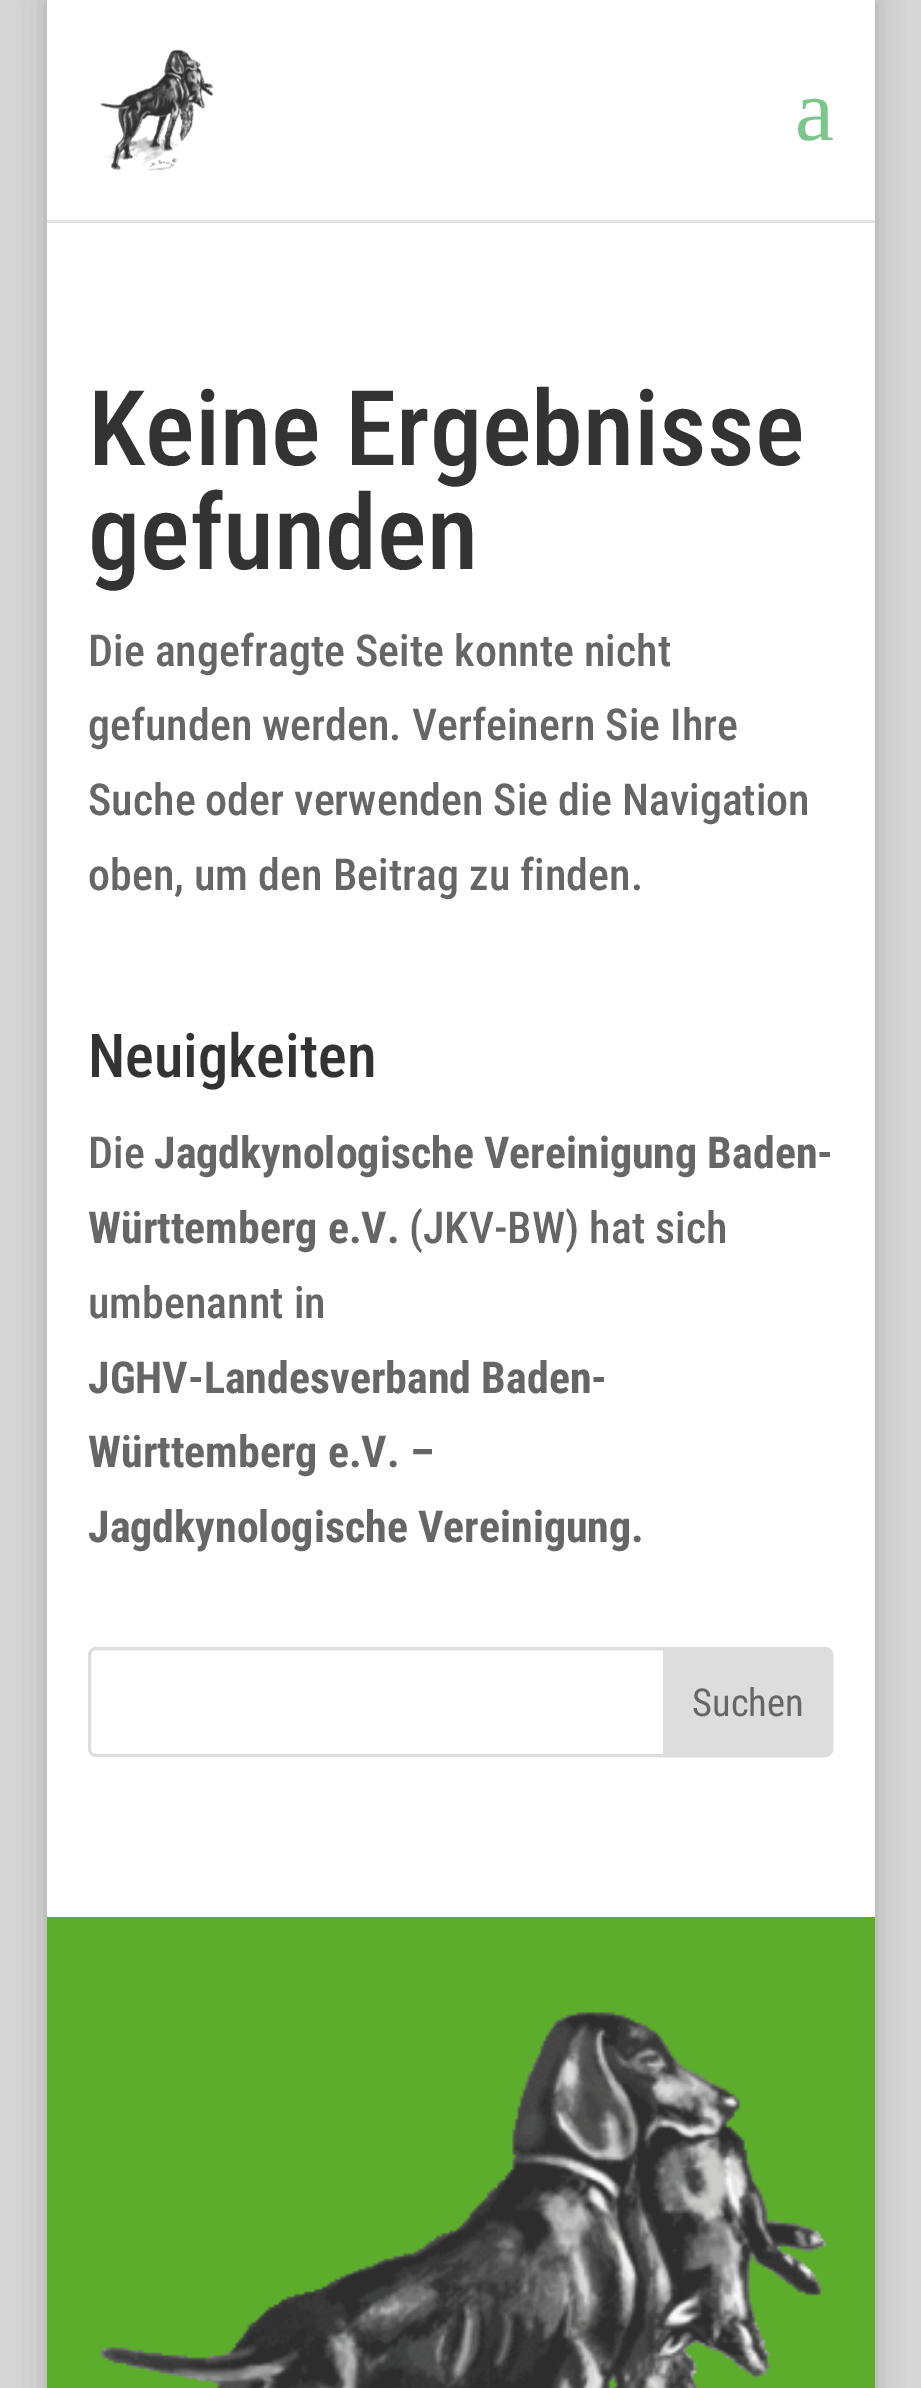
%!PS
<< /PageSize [921 2388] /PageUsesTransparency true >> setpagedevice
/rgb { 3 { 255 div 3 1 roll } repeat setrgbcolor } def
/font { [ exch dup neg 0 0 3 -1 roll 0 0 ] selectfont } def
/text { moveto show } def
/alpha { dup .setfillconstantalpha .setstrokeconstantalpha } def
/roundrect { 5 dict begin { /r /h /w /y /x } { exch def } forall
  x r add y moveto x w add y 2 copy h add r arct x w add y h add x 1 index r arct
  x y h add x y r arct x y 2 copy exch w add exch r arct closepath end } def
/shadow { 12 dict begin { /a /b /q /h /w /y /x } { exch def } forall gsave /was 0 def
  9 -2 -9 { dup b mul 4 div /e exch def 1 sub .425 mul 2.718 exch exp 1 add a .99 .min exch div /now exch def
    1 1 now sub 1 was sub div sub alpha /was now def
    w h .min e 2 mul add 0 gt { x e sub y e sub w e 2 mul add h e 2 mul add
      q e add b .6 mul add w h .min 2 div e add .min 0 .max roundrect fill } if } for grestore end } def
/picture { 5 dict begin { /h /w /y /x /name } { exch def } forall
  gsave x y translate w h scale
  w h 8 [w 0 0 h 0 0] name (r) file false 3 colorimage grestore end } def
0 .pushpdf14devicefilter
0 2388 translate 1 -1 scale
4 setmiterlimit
214 214 214 rgb
0 0 921 2388 rectfill
0 0 0 rgb
47 0 828 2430 0 14 0.2 shadow
255 255 255 rgb
47 220 828 1697 rectfill
0.1 alpha
0 0 0 rgb
47 220 moveto 0 3 rlineto 828 0 rlineto 0 -220 rlineto -1 0 rlineto 0 217 rlineto closepath fill
1 alpha
255 255 255 rgb
47 0 828 220 rectfill
(img_01.rgb) 100 49 114 122 picture
221 221 221 rgb
3 setlinewidth
89.5 1648.5 742 107 6.5 roundrect stroke
664.5 1648.5 moveto 160.5 0 rlineto 3.5 0 6.5 3 6.5 6.5 rcurveto 0 94 rlineto 0 3.5 -3 6.5 -6.5 6.5 rcurveto -160.5 0 rlineto closepath gsave fill grestore
stroke
91 173 43 rgb
47 1917 828 471 rectfill
(img_02.rgb) 100 2011 727 377 picture
/LiberationSerif-Regular 88 font
124 198 141 rgb
(a) 795 140 text
/RobotoCondensed-Medium 104.5 font
51 51 51 rgb
(Keine Ergebnisse) 88 465 text
(gefunden) 88 569 text
/RobotoCondensed-Medium 44 font
102 102 102 rgb
(Die angefragte Seite konnte nicht) 88 666 text
(gefunden werden. Verfeinern Sie Ihre) 88 740 text
(Suche oder verwenden Sie die Navigation) 88 815 text
(oben, um den Beitrag zu finden.) 88 890 text
/RobotoCondensed-Medium 60.5 font
51 51 51 rgb
(Neuigkeiten) 88 1077 text
/RobotoCondensed-Medium 44 font
102 102 102 rgb
(Die) 88 1168 text
/RobotoCondensed-Bold 44 font
(Jagdkynologische Vereinigung Baden-) 154 1168 text
(Württemberg e.V.) 88 1243 text
/RobotoCondensed-Medium 44 font
(\(JKV-BW\) hat sich) 409 1243 text
(umbenannt in) 88 1318 text
/RobotoCondensed-Bold 44 font
(JGHV-Landesverband Baden-) 88 1393 text
(Württemberg e.V. –) 88 1467 text
(Jagdkynologische Vereinigung.) 88 1542 text
/RobotoCondensed-Regular 38.5 font
(Suchen) 692 1716 text
.poppdf14devicefilter showpage
